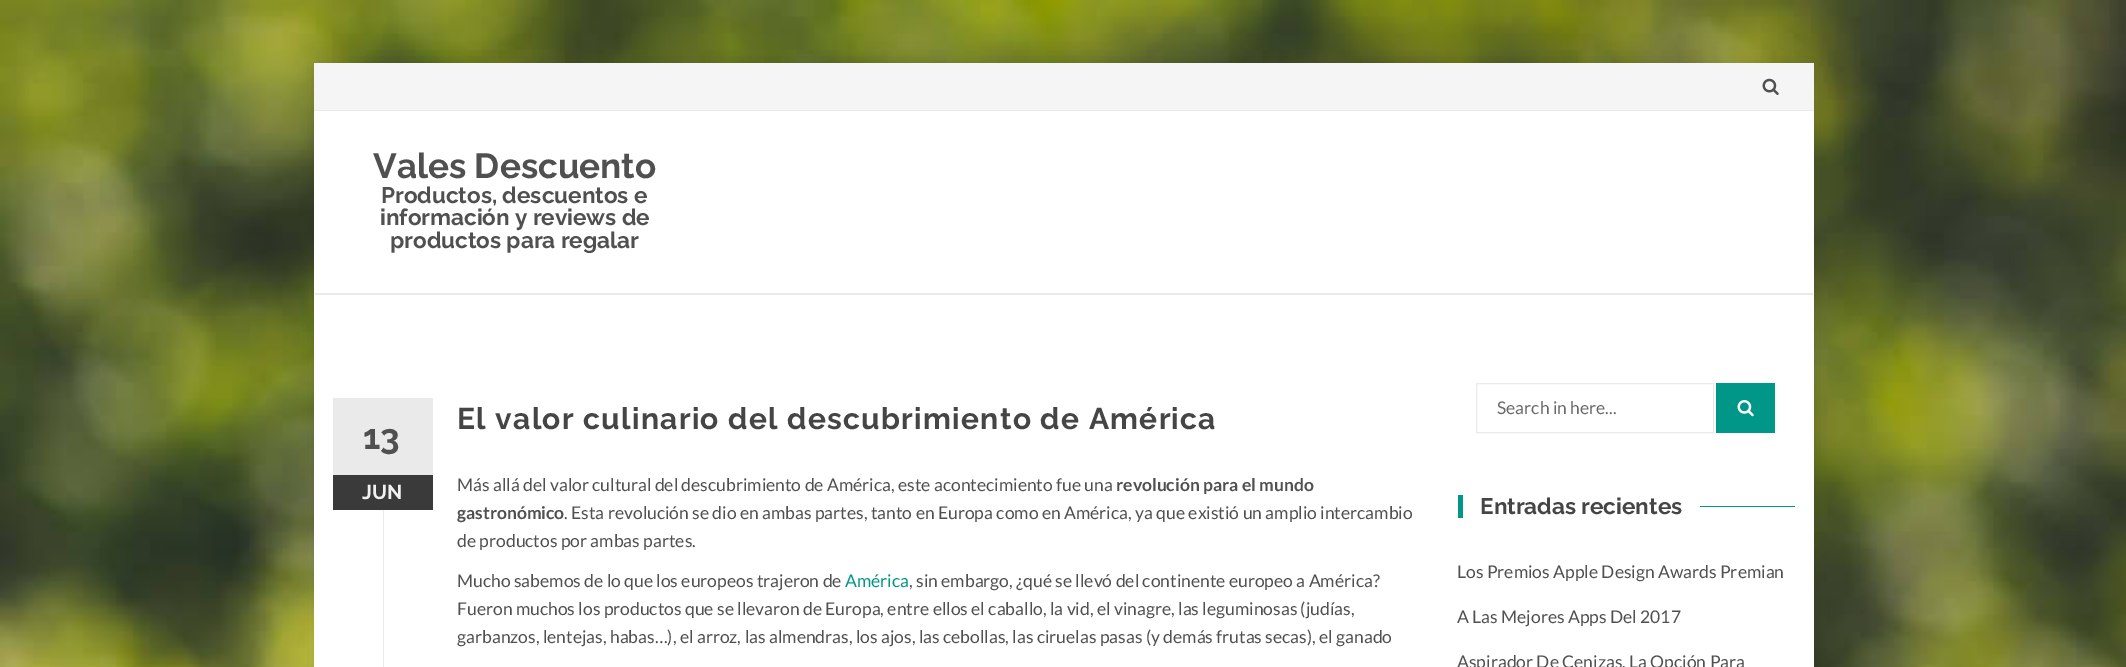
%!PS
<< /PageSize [2126 667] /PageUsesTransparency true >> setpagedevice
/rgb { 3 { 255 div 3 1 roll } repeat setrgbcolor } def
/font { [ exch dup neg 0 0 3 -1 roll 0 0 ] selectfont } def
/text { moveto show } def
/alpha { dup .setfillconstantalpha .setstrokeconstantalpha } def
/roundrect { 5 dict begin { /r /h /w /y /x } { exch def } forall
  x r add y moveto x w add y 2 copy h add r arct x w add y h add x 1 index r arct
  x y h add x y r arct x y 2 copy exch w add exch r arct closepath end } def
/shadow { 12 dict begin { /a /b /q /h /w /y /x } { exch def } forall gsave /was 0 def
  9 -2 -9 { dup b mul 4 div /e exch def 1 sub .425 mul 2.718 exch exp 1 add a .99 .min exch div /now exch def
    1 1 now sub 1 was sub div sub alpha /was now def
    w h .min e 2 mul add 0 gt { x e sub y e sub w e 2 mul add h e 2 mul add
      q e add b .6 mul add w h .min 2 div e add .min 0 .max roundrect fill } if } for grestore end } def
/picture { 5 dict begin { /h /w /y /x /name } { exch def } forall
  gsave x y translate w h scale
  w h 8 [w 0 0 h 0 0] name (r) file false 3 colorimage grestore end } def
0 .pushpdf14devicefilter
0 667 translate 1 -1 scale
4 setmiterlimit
255 255 255 rgb
0 0 2126 667 rectfill
(img_01.rgb) 0 0 2126 667 picture
0 0 0 rgb
314 63 1500 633 0 9.5 0.1 shadow
255 255 255 rgb
314 111 1500 556 rectfill
245 245 245 rgb
314 63 1500 47 rectfill
234 234 234 rgb
314 110 1500 1 rectfill
(img_02.rgb) 1762 78 17 17 picture
315 293 1498 2 rectfill
333 398 100 77 rectfill
58 58 58 rgb
333 475 100 35 rectfill
234 234 234 rgb
383 510 1 157 rectfill
1476.5 383.5 237 49 rectstroke
0 150 136 rgb
1716 383 59 50 rectfill
(img_03.rgb) 1737 400 17 17 picture
1458 495 5 23 rectfill
1700 506 95 1 rectfill
/Raleway-Bold 35 font
80 80 80 rgb
(Vales Descuento) 373 178 text
/Raleway-Bold 22.5 font
(Productos, descuentos e) 381 203 text
(información y reviews de) 380 225 text
(productos para regalar) 390 248 text
/Raleway-Bold 30 font
69 69 69 rgb
457 429 moveto 1.25 0 (El valor culinario del descubrimiento de América) ashow
/Raleway-Bold 35 font
80 80 80 rgb
(13) 363 449 text
/Raleway-Bold 20 font
241 241 241 rgb
(JUN) 362 499 text
/Lato-Regular 17.5 font
80 80 80 rgb
(Más allá del valor cultural del descubrimiento de América, este acontecimiento fue una) 457 491 text
/Lato-Bold 17.5 font
(revolución para el mundo) 1116 491 text
(gastronómico) 457 519 text
/Lato-Regular 17.5 font
(. Esta revolución se dio en ambas partes, tanto en Europa como en América, ya que existió un amplio intercambio) 564 519 text
(de productos por ambas partes.) 457 547 text
(Mucho sabemos de lo que los europeos trajeron de) 457 587 text
0 150 136 rgb
(América) 845 587 text
80 80 80 rgb
(, sin embargo, ¿qué se llevó del continente europeo a América?) 909 587 text
(Fueron muchos los productos que se llevaron de Europa, entre ellos el caballo, la vid, el vinagre, las leguminosas \(judías,) 457 615 text
(garbanzos, lentejas, habas…\), el arroz, las almendras, los ajos, las cebollas, las ciruelas pasas \(y demás frutas secas\), el ganado) 457 643 text
106 106 106 rgb
(Search in here...) 1497 414 text
/Raleway-Bold 22.5 font
69 69 69 rgb
(Entradas recientes) 1480 514 text
/Lato-Regular 17.5 font
80 80 80 rgb
(Los Premios Apple Design Awards Premian) 1457 578 text
(A Las Mejores Apps Del 2017) 1457 623 text
(Aspirador De Cenizas, La Opción Para) 1457 668 text
.poppdf14devicefilter showpage
